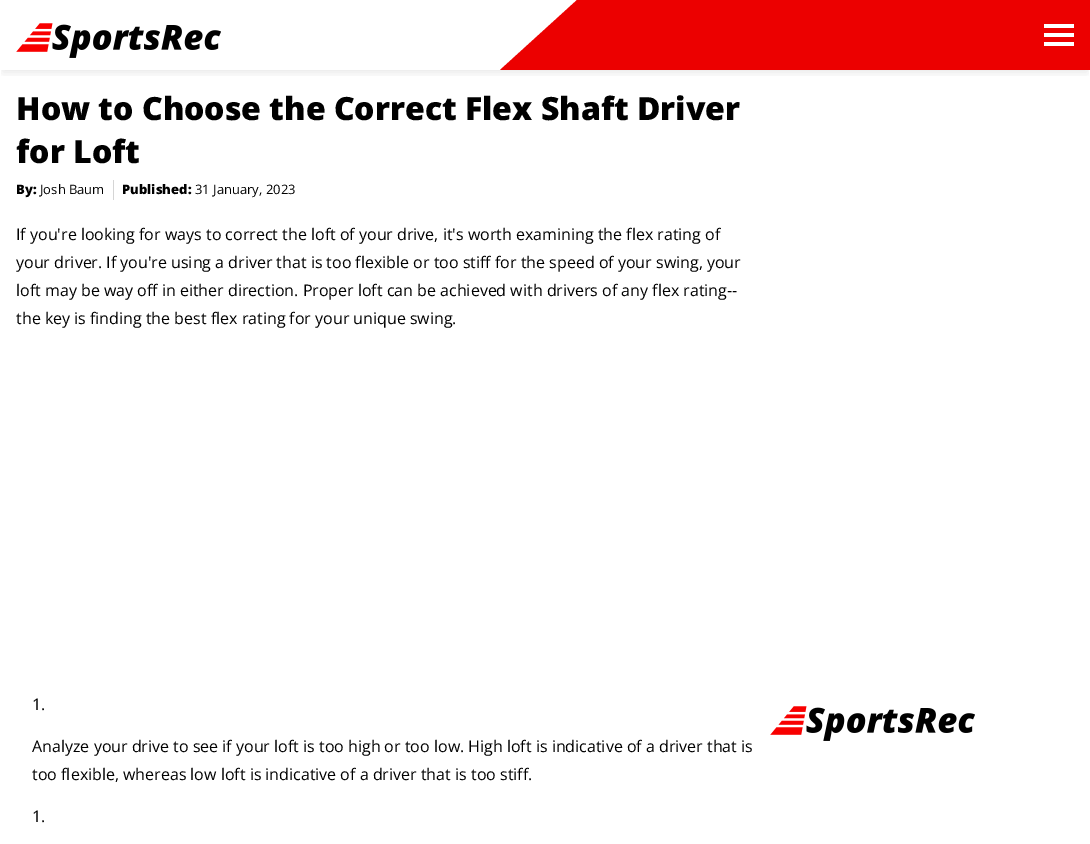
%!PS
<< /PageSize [1090 844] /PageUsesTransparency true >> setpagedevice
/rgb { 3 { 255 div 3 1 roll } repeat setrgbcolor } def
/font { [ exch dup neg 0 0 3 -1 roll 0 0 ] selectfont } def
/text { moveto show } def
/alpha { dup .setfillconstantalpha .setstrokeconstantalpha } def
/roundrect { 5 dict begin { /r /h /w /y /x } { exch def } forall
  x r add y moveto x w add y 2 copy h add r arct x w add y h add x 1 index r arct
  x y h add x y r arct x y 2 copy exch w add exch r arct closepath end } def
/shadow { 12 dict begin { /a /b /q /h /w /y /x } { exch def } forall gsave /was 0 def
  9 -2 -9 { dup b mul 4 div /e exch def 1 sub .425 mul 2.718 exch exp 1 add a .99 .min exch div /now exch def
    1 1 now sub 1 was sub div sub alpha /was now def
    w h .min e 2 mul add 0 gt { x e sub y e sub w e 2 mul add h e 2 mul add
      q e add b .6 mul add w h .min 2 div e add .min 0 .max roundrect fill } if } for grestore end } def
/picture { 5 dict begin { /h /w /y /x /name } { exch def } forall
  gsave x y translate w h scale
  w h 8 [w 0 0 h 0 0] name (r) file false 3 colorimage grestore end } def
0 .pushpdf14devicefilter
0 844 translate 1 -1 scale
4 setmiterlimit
255 255 255 rgb
0 0 1090 844 rectfill
gsave
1 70 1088 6 rectclip
0 0 0 rgb
3 8 1084 64 0 5 0.1 shadow
grestore
236 0 0 rgb
577 0 moveto -77 70 rlineto 590 0 rlineto 0 -70 rlineto closepath fill
(img_01.rgb) 16 23 205 35 picture
255 255 255 rgb
1044 24 30 4 rectfill
1044 33 30 4 rectfill
1044 42 30 4 rectfill
213 213 213 rgb
113 180 1 20 rectfill
(img_01.rgb) 770 706 205 35 picture
/OpenSans-ExtraBold 32 font
0 0 0 rgb
(How to Choose the Correct Flex Shaft Driver) 16 120 text
(for Loft) 16 163 text
/OpenSans-ExtraBold 13 font
(By:) 16 194 text
/OpenSans-Regular 13 font
(Josh Baum) 40 194 text
/OpenSans-ExtraBold 13 font
(Published:) 122 194 text
/OpenSans-Regular 13 font
(31 January, 2023) 195 194 text
/OpenSans-Regular 16 font
(If you're looking for ways to correct the loft of your drive, it's worth examining the flex rating of) 16 240 text
(your driver. If you're using a driver that is too flexible or too stiff for the speed of your swing, your) 16 268 text
(loft may be way off in either direction. Proper loft can be achieved with drivers of any flex rating--) 16 296 text
(the key is finding the best flex rating for your unique swing.) 16 324 text
(1.) 32 710 text
(Analyze your drive to see if your loft is too high or too low. High loft is indicative of a driver that is) 32 752 text
(too flexible, whereas low loft is indicative of a driver that is too stiff.) 32 780 text
(1.) 32 822 text
.poppdf14devicefilter showpage
